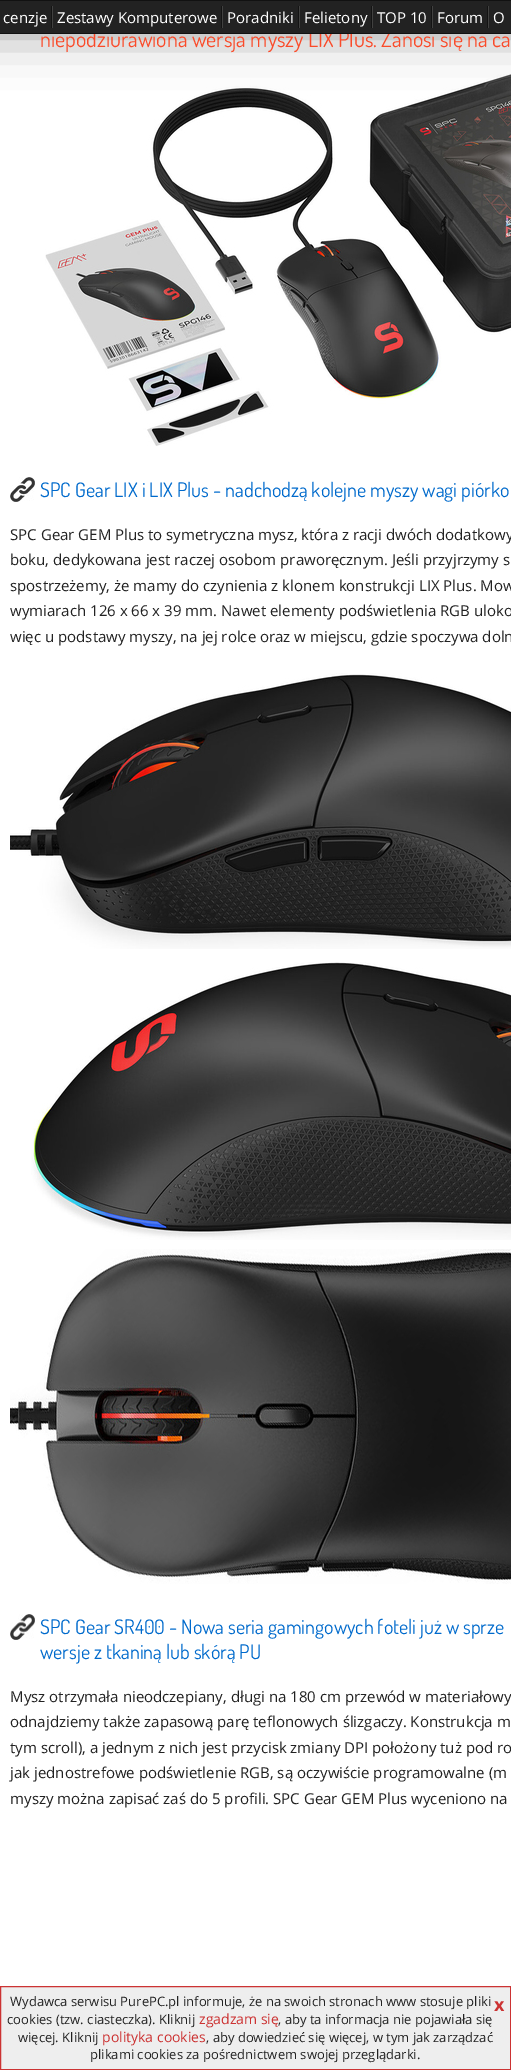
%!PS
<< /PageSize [511 2070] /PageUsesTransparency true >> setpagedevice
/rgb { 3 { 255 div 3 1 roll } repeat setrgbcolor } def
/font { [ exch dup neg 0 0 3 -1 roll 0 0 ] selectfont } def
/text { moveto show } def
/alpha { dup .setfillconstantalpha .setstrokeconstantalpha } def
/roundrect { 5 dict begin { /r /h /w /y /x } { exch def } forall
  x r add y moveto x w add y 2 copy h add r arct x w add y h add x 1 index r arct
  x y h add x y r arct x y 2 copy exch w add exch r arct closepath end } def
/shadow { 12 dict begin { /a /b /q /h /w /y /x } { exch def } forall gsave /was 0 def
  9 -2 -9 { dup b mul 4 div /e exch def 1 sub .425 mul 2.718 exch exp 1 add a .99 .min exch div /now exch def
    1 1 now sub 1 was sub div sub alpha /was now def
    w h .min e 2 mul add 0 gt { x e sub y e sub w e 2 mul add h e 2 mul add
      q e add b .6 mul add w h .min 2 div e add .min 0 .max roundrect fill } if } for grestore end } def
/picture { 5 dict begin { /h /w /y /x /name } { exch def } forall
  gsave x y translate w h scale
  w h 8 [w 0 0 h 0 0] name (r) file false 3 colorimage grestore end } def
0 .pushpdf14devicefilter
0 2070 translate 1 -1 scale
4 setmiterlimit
255 255 255 rgb
0 0 511 2070 rectfill
(img_01.rgb) 45 74 466 372 picture
153 153 153 rgb
-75 0 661 34 0 25 1 shadow
17 17 17 rgb
0 0 511 1 rectfill
(img_02.rgb) 10 477 25 25 picture
(img_03.rgb) 10 673 501 276 picture
(img_04.rgb) 31 962 480 278 picture
(img_05.rgb) 10 1249 501 335 picture
(img_06.rgb) 10 1614 25 26 picture
238 238 238 rgb
0.5 1986.5 moveto 510 0 rlineto 0 83 rlineto -510 0 rlineto closepath gsave fill grestore
204 51 51 rgb
stroke
/Dosis-Regular 22 font
250 75 42 rgb
(niepodziurawiona wersja myszy LIX Plus. Zanosi się na ca) 40 47 text
34 34 34 rgb
0 1 511 32 rectfill
/OpenSans-Regular 15 font
255 255 255 rgb
(O) 493 23 text
19 19 19 rgb
487 6 1 22 rectfill
65 65 64 rgb
488 6 1 22 rectfill
255 255 255 rgb
(Forum) 437 23 text
19 19 19 rgb
431 6 1 22 rectfill
65 65 64 rgb
432 6 1 22 rectfill
255 255 255 rgb
(TOP 10) 377 23 text
19 19 19 rgb
371 6 1 22 rectfill
65 65 64 rgb
372 6 1 22 rectfill
255 255 255 rgb
(Felietony) 304 23 text
19 19 19 rgb
298 6 1 22 rectfill
65 65 64 rgb
299 6 1 22 rectfill
255 255 255 rgb
(Poradniki) 227 23 text
19 19 19 rgb
221 6 1 22 rectfill
65 65 64 rgb
222 6 1 22 rectfill
255 255 255 rgb
(Zestawy Komputerowe) 57 23 text
19 19 19 rgb
51 6 1 22 rectfill
65 65 64 rgb
52 6 1 22 rectfill
255 255 255 rgb
(cenzje) 3 23 text
17 17 17 rgb
0 33 511 1 rectfill
/Dosis-Regular 20 font
0 106 204 rgb
(SPC Gear LIX i LIX Plus - nadchodzą kolejne myszy wagi piórko) 40 497 text
/OpenSans-Regular 15 font
34 34 34 rgb
(SPC Gear GEM Plus to symetryczna mysz, która z racji dwóch dodatkowy) 10 540 text
(boku, dedykowana jest raczej osobom praworęcznym. Jeśli przyjrzymy s) 10 565 text
(spostrzeżemy, że mamy do czynienia z klonem konstrukcji LIX Plus. Mow) 10 591 text
(wymiarach 126 x 66 x 39 mm. Nawet elementy podświetlenia RGB uloko) 10 616 text
(więc u podstawy myszy, na jej rolce oraz w miejscu, gdzie spoczywa doln) 10 642 text
/Dosis-Regular 20 font
0 106 204 rgb
(SPC Gear SR400 - Nowa seria gamingowych foteli już w sprze) 40 1634 text
(wersje z tkaniną lub skórą PU) 40 1659 text
/OpenSans-Regular 15 font
34 34 34 rgb
(Mysz otrzymała nieodczepiany, długi na 180 cm przewód w materiałowy) 10 1702 text
(odnajdziemy także zapasową parę teflonowych ślizgaczy. Konstrukcja m) 10 1727 text
(tym scroll\), a jednym z nich jest przycisk zmiany DPI położony tuż pod ro) 10 1753 text
(jak jednostrefowe podświetlenie RGB, są oczywiście programowalne \(m) 10 1778 text
(myszy można zapisać zaś do 5 profili. SPC Gear GEM Plus wyceniono na) 10 1804 text
/OpenSans-Regular 13 font
(Wydawca serwisu PurePC.pl informuje, że na swoich stronach www stosuje pliki) 10 2006 text
/OpenSans-Bold 18 font
204 51 51 rgb
(x) 494 2011 text
/OpenSans-Regular 13 font
34 34 34 rgb
(cookies \(tzw. ciasteczka\). Kliknij) 7 2024 text
/OpenSans-Regular 14 font
204 51 51 rgb
(zgadzam się) 199 2024 text
/OpenSans-Regular 13 font
34 34 34 rgb
(, aby ta informacja nie pojawiała się) 278 2024 text
(więcej. Kliknij) 18 2042 text
/OpenSans-Regular 14 font
204 51 51 rgb
(polityka cookies) 102 2042 text
/OpenSans-Regular 13 font
34 34 34 rgb
(, aby dowiedzieć się więcej, w tym jak zarządzać) 206 2042 text
(plikami cookies za pośrednictwem swojej przeglądarki.) 90 2059 text
.poppdf14devicefilter showpage
